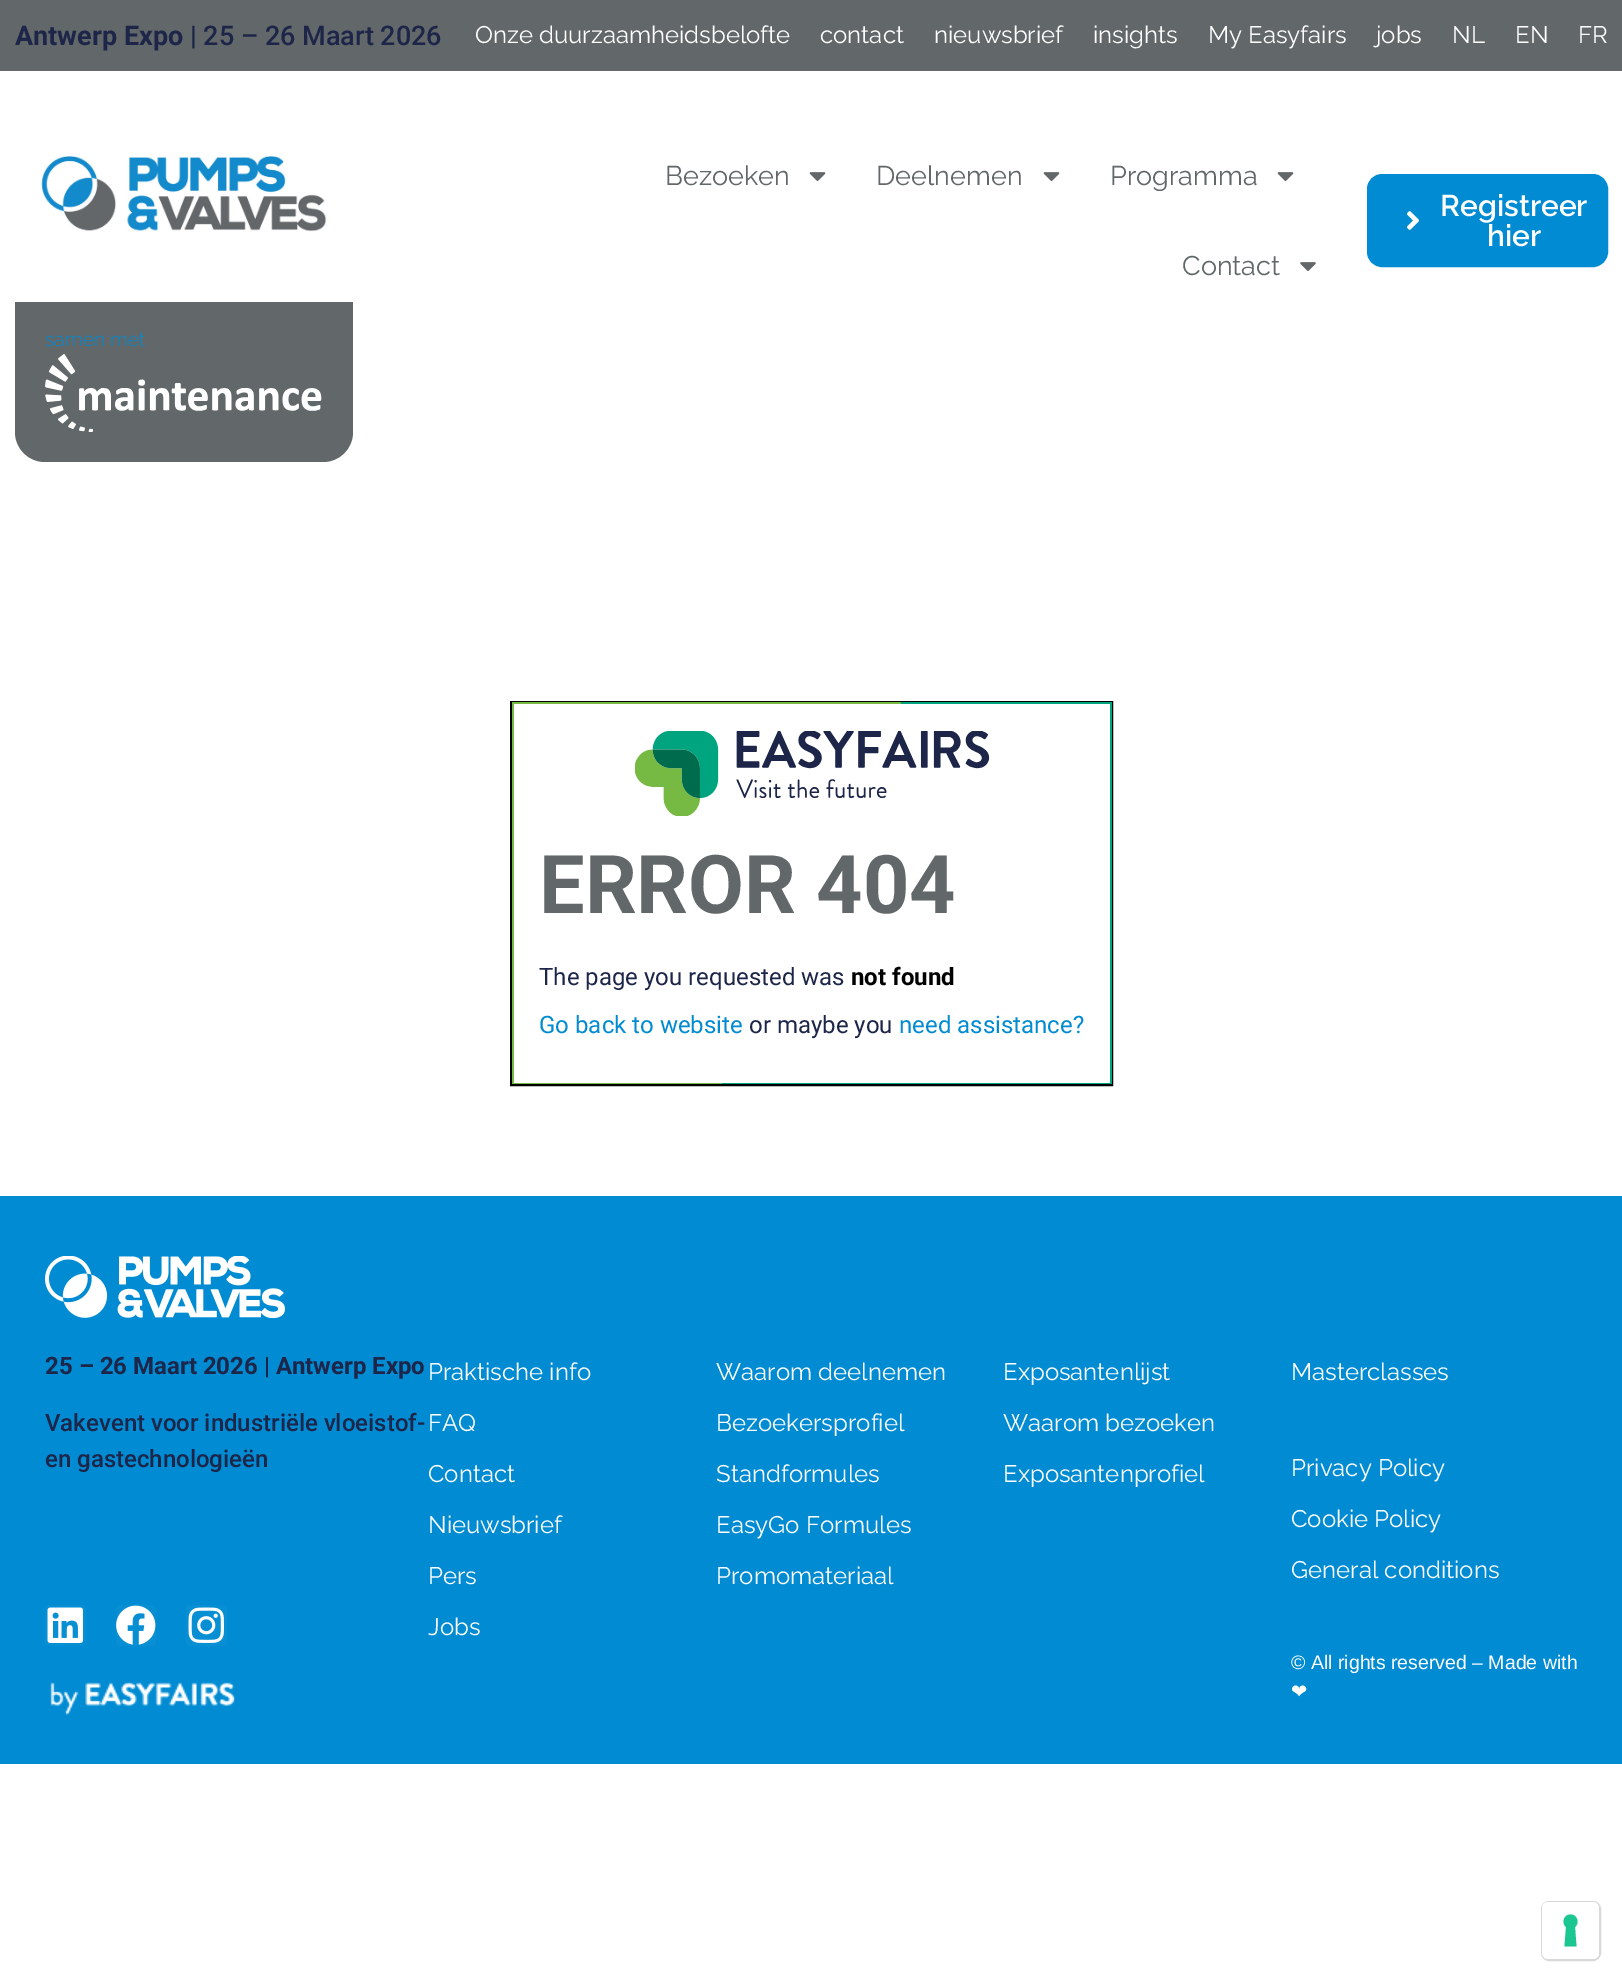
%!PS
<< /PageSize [1622 1983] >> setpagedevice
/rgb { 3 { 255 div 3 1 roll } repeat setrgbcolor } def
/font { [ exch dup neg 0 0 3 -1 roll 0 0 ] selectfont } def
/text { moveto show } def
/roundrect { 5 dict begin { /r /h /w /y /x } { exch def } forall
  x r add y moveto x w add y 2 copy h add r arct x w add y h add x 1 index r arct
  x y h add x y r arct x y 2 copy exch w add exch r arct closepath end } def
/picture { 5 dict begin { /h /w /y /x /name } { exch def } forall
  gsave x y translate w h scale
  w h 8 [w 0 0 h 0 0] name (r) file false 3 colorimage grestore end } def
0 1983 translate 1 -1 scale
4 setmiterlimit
255 255 255 rgb
0 0 1622 1983 rectfill
98 103 105 rgb
0 0 1622 71 rectfill
(img_01.rgb) 809 172 17 9 picture
(img_01.rgb) 1043 172 17 9 picture
(img_01.rgb) 1277 172 17 9 picture
(img_02.rgb) 1300 262 16 9 picture
0 139 210 rgb
1368 175 239 91 14 roundrect gsave fill grestore
2 setlinewidth
stroke
(img_03.rgb) 1407 211 12 19 picture
(img_04.rgb) 41 155 286 77 picture
98 103 105 rgb
15 302 moveto 338 0 rlineto 0 130 rlineto 0 16.5 -13.5 30 -30 30 rcurveto -278 0 rlineto -16.5 0 -30 -13.5 -30 -30 rcurveto closepath fill
(img_05.rgb) 45 354 277 78 picture
(img_06.rgb) 635 731 355 85 picture
0 0 0 rgb
511 702 601 383 rectstroke
118 186 67 rgb
512 702 moveto 0 382 rlineto 209 0 rlineto 1 -1 rlineto -208 0 rlineto 0 -379 rlineto 387 0 rlineto 0 -2 rlineto closepath fill
0 165 127 rgb
1112 1084 moveto 0 -382 rlineto -211 0 rlineto 0 2 rlineto 209 0 rlineto 0 379 rlineto -388 0 rlineto -1 1 rlineto closepath fill
0 139 210 rgb
0 1196 1622 568 rectfill
(img_07.rgb) 45 1256 240 62 picture
8 142 211 rgb
45 1605 41 41 4 roundrect fill
(img_08.rgb) 47 1607 36 36 picture
116 1605 40 41 4 roundrect fill
(img_09.rgb) 116 1605 40 40 picture
186 1605 41 41 4 roundrect fill
(img_10.rgb) 188 1607 36 36 picture
(img_11.rgb) 50 1682 185 33 picture
217 217 217 rgb
1542 1902 58 58 7 roundrect stroke
255 255 255 rgb
1542 1902 57 57 6 roundrect fill
28 198 145 rgb
1570.5 1914.5 moveto 6.5 0 9.5 8 4.5 12.5 rcurveto 1.5 19.5 rlineto -12 0 rlineto 1.5 -19.5 rlineto -5 -4.5 -2 -12.5 4.5 -12.5 rcurveto closepath eofill
/Roboto-Bold 27 font
29 38 73 rgb
(Antwerp Expo) 15 45 text
/Roboto-Medium 27 font
(| 25 – 26 Maart 2026) 190 45 text
/Raleway-Regular 24 font
255 255 255 rgb
(Onze duurzaamheidsbelofte) 475 43 text
(contact) 820 43 text
(nieuwsbrief) 934 43 text
(insights) 1093 43 text
(My Easyfairs) 1208 43 text
(jobs) 1376 43 text
(NL) 1452 43 text
(EN) 1515 43 text
(FR) 1578 43 text
/Raleway-Regular 27 font
98 103 105 rgb
(Bezoeken) 665 185 text
(Deelnemen) 876 185 text
(Programma) 1110 185 text
(Contact) 1182 275 text
/Raleway-SemiBold 30 font
255 255 255 rgb
(Registreer) 1440 216 text
(hier) 1487 246 text
/Raleway-Light 19.5 font
0 139 210 rgb
(samen met) 45 346 text
/Roboto-Bold 81 font
98 103 105 rgb
(ERROR 404) 539 913 text
/Roboto-Regular 24 font
29 38 73 rgb
(The page you requested was) 539 985 text
/Roboto-Bold 24 font
0 0 0 rgb
(not found) 851 985 text
/Roboto-Regular 24 font
0 139 210 rgb
(Go back to website) 539 1033 text
29 38 73 rgb
(or maybe you) 749 1033 text
0 139 210 rgb
(need assistance?) 899 1033 text
/Roboto-Bold 24 font
29 38 73 rgb
(25 – 26 Maart 2026 | Antwerp Expo) 45 1374 text
/Roboto-Medium 24 font
(Vakevent voor industriële vloeistof-) 45 1431 text
(en gastechnologieën) 45 1467 text
/Raleway-Regular 24 font
255 255 255 rgb
(Praktische info) 428 1380 text
(FAQ) 428 1431 text
(Contact) 428 1482 text
(Nieuwsbrief) 428 1533 text
(Pers) 428 1584 text
(Jobs) 428 1635 text
(Waarom deelnemen) 716 1380 text
(Bezoekersprofiel) 716 1431 text
(Standformules) 716 1482 text
(EasyGo Formules) 716 1533 text
(Promomateriaal) 716 1584 text
(Exposantenlijst) 1003 1380 text
(Waarom bezoeken) 1003 1431 text
(Exposantenprofiel) 1003 1482 text
(Masterclasses) 1291 1380 text
(Privacy Policy) 1291 1476 text
(Cookie Policy) 1291 1527 text
(General conditions) 1291 1578 text
/LiberationSans-Regular 19.5 font
(© All rights reserved – Made with) 1291 1669 text
/DejaVuSans-Regular 19.5 font
(❤) 1291 1698 text
showpage
